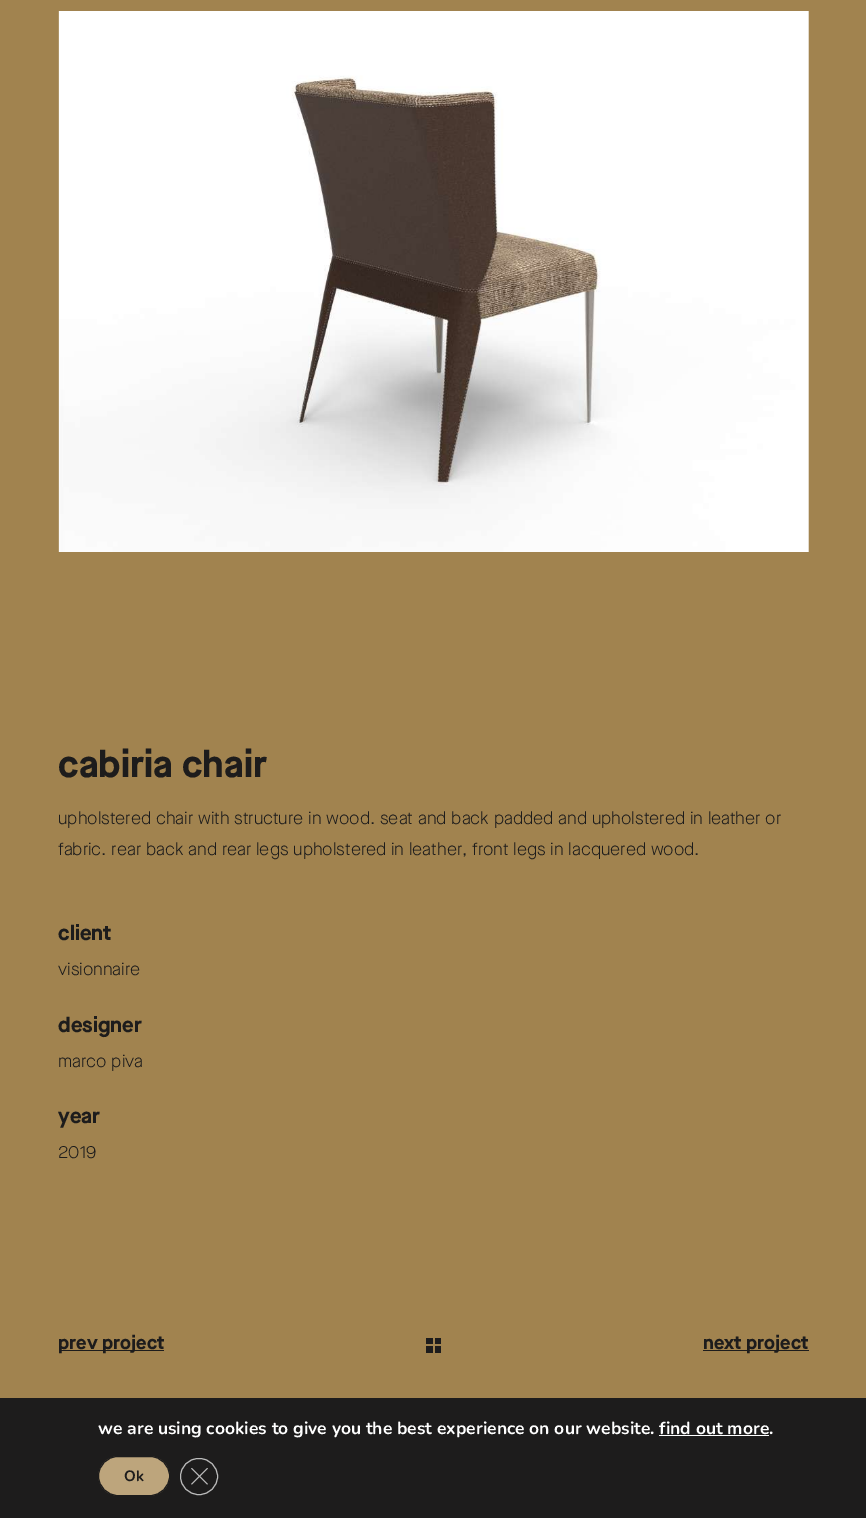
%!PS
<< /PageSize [866 1518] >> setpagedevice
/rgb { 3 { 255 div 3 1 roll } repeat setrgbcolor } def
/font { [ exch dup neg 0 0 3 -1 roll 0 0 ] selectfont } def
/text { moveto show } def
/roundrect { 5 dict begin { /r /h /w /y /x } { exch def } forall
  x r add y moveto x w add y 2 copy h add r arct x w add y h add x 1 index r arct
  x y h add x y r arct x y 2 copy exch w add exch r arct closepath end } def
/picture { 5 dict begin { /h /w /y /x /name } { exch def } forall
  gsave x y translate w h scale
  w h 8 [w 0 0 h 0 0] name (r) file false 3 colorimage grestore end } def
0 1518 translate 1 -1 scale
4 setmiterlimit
161 131 79 rgb
0 0 866 1518 rectfill
(img_01.rgb) 58 11 751 541 picture
29 28 28 rgb
59 1350 105 1 rectfill
426 1338 7 6 rectfill
435 1338 6 6 rectfill
426 1346 7 7 rectfill
435 1346 6 7 rectfill
703 1350 106 1 rectfill
0 1398 866 120 rectfill
255 255 255 rgb
659 1435 110 1 rectfill
189 165 124 rgb
98.5 1456.5 71 39 19.5 roundrect gsave fill grestore
29 28 28 rgb
stroke
187 187 187 rgb
180.5 1458.5 37 36 18 roundrect stroke
207 1468 moveto 1 0.5 rlineto -16 16 rlineto -1 -0.5 rlineto closepath fill
191 1468.5 moveto 1 -0.5 rlineto 16 16 rlineto -1 0.5 rlineto closepath fill
/MaisonNeue-Bold 37.5 font
29 28 28 rgb
(cabiria chair) 58 777 text
/MaisonNeue-Light 17.5 font
(upholstered chair with structure in wood. seat and back padded and upholstered in leather or) 58 824 text
(fabric. rear back and rear legs upholstered in leather, front legs in lacquered wood.) 58 855 text
/MaisonNeue-Bold 21 font
(client) 58 940 text
/MaisonNeue-Light 17.5 font
(visionnaire) 58 975 text
/MaisonNeue-Bold 21 font
(designer) 58 1032 text
/MaisonNeue-Light 17.5 font
(marco piva) 58 1067 text
/MaisonNeue-Bold 21 font
(year) 58 1123 text
/MaisonNeue-Light 17.5 font
(2019) 58 1158 text
/MaisonNeue-Bold 18.75 font
(prev project) 58 1349 text
(next project) 703 1349 text
/Nunito-Bold 17.5 font
255 255 255 rgb
(we are using cookies to give you the best experience on our website. find out more.) 98 1434 text
/Nunito-Bold 15 font
29 28 28 rgb
(Ok) 124 1481 text
showpage
